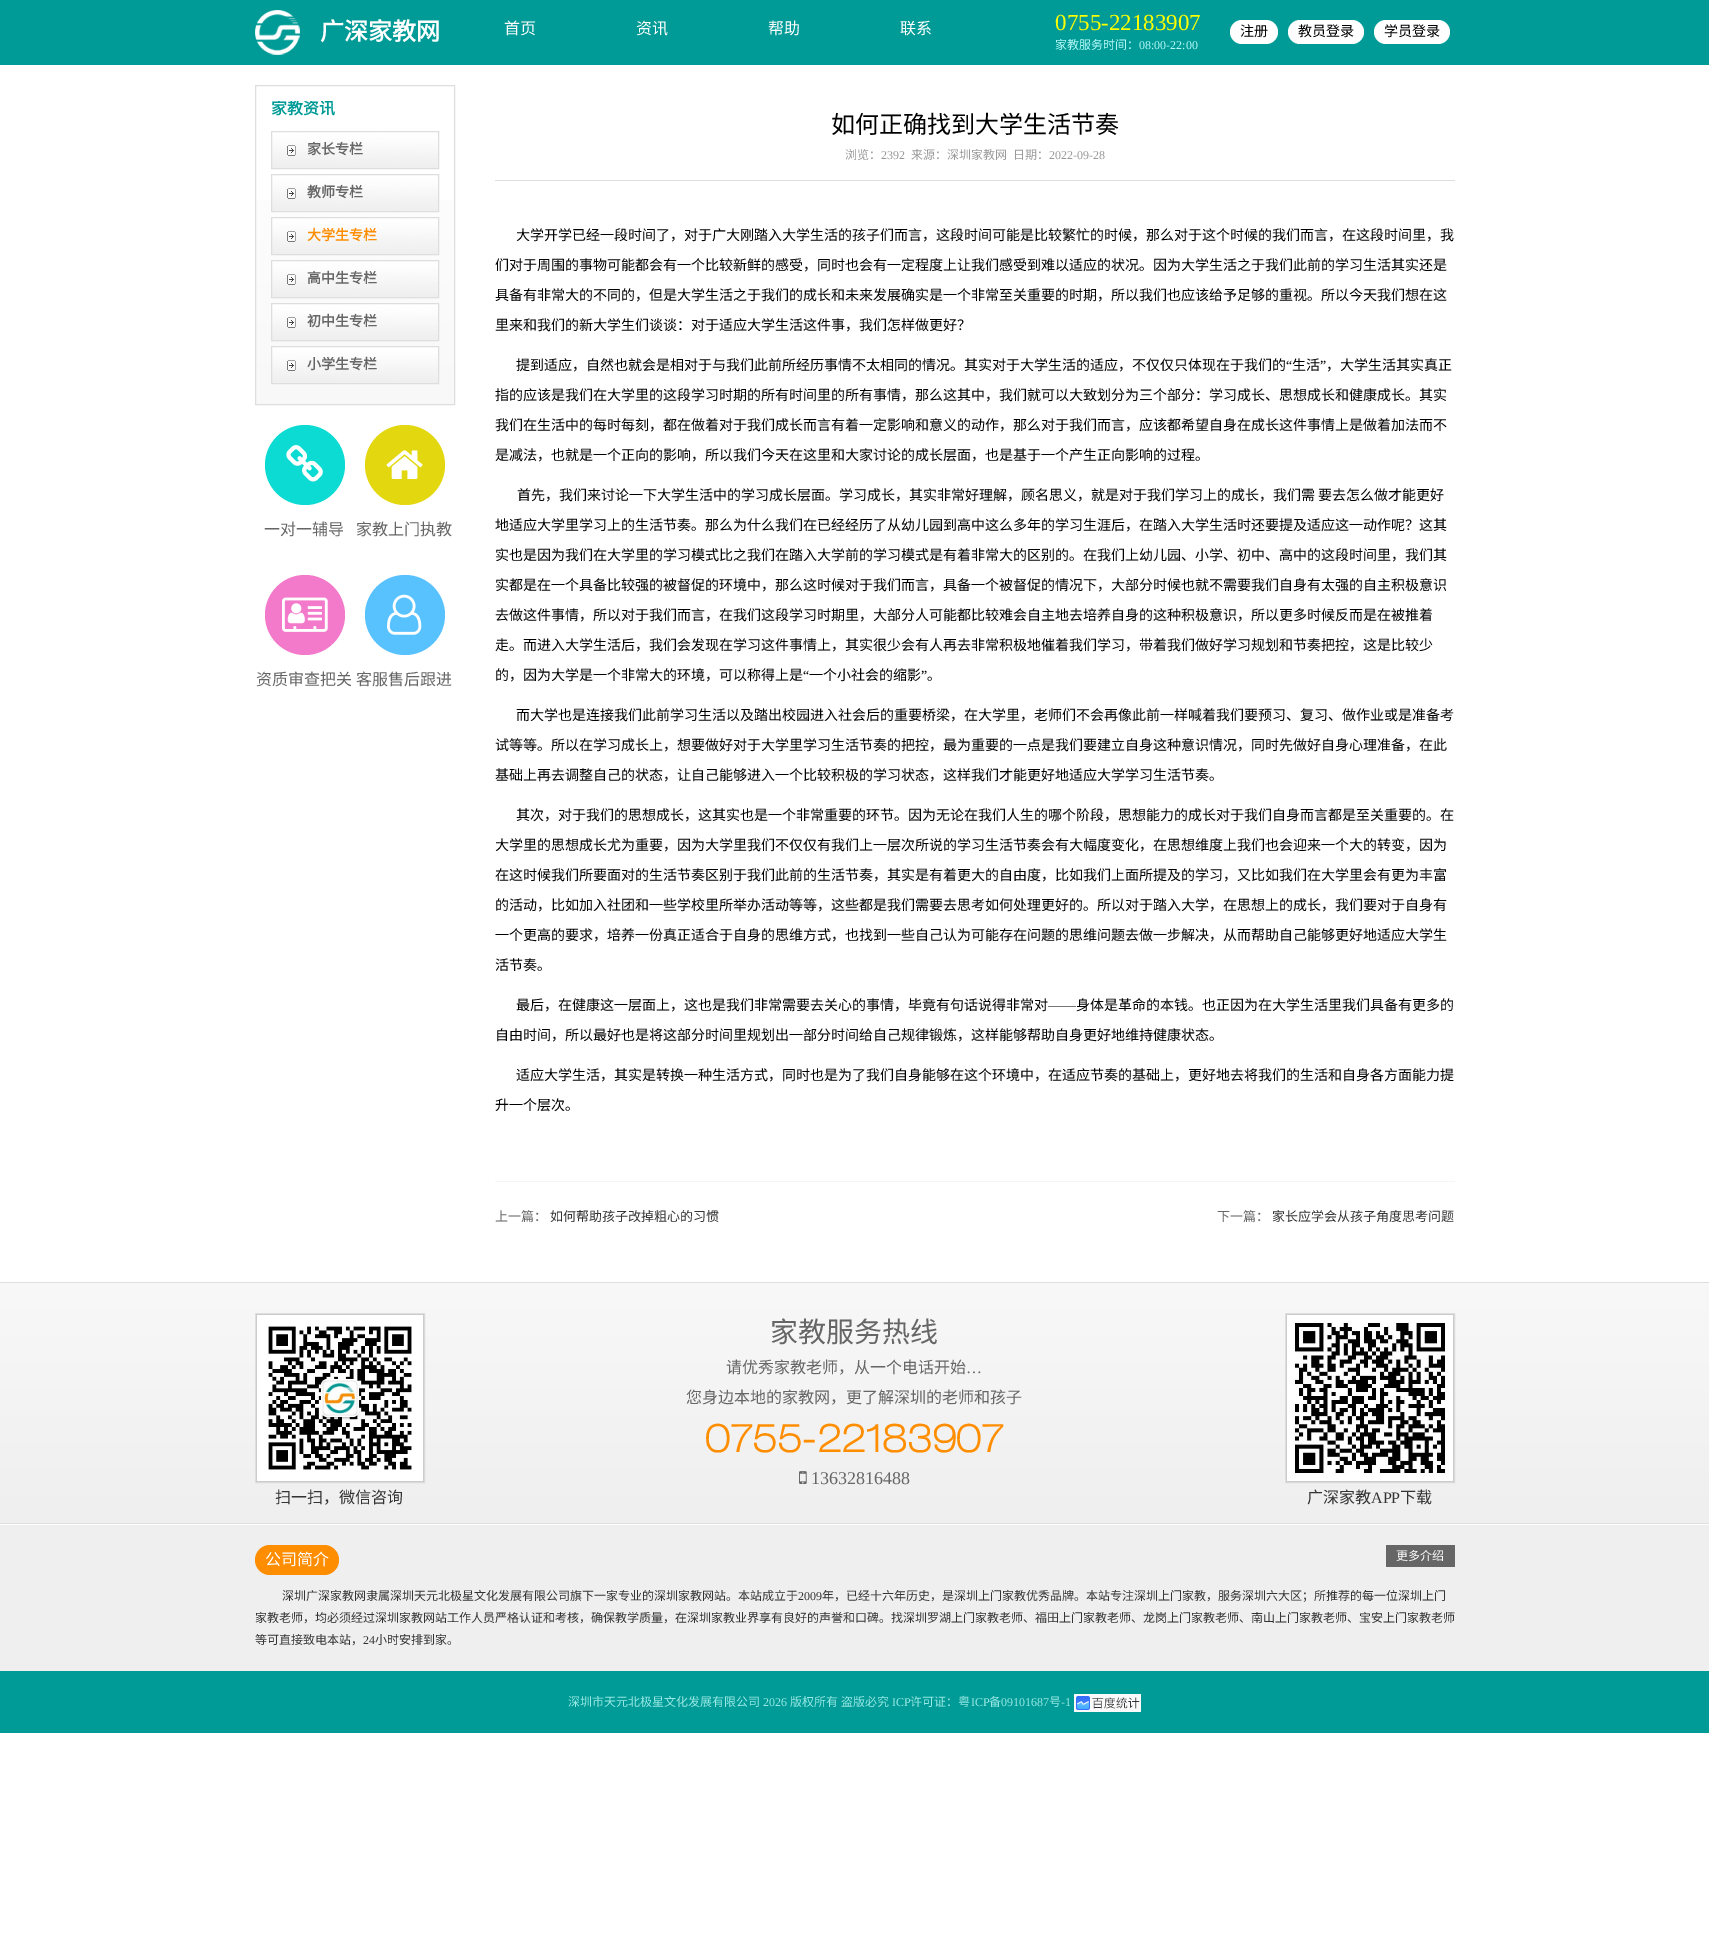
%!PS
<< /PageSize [1709 1943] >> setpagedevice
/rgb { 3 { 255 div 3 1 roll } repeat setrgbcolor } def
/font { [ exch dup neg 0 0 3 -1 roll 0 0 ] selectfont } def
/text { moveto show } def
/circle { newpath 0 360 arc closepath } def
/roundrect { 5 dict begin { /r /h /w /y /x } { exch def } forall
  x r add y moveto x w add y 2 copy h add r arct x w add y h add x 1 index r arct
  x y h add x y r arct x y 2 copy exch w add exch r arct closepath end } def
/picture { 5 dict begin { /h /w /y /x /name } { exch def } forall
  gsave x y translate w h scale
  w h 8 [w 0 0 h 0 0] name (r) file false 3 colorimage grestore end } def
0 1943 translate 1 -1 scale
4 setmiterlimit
255 255 255 rgb
0 0 1709 1943 rectfill
0 155 151 rgb
0 0 1709 65 rectfill
(img_01.rgb) 255 10 45 45 picture
255 255 255 rgb
1230 20 48 24 12 roundrect fill
1288 20 76 24 12 roundrect fill
1374 20 76 24 12 roundrect fill
gsave 256 200 moveto 198 0 rlineto 0 204 rlineto -198 0 rlineto closepath clip newpath
<< /ShadingType 2 /ColorSpace /DeviceRGB /Coords [355 86 355 404] /Extend [true true] /Function << /FunctionType 2 /Domain [0 1] /C0 [1 1 1] /C1 [0.973 0.973 0.973] /N 1 >> >> shfill grestore
222 222 222 rgb
255.5 85.5 199 319 rectstroke
(img_02.rgb) 272 132 166 36 picture
271.5 131.5 167 37 rectstroke
(img_02.rgb) 272 175 166 36 picture
271.5 174.5 167 37 rectstroke
(img_02.rgb) 272 218 166 36 picture
271.5 217.5 167 37 rectstroke
(img_02.rgb) 272 261 166 36 picture
271.5 260.5 167 37 rectstroke
(img_02.rgb) 272 304 166 36 picture
271.5 303.5 167 37 rectstroke
(img_02.rgb) 272 347 166 36 picture
271.5 346.5 167 37 rectstroke
11 219 211 rgb
305 465 40 circle fill
(img_03.rgb) 286 445 37 37 picture
227 216 15 rgb
405 465 40 circle fill
(img_04.rgb) 386 450 37 29 picture
243 121 203 rgb
305 615 40 circle fill
(img_05.rgb) 282 597 46 35 picture
88 194 255 rgb
405 615 40 circle fill
(img_06.rgb) 387 594 35 41 picture
222 222 222 rgb
495 180 960 1 rectfill
245 245 245 rgb
495 1181 960 1 rectfill
gsave 0 1283 moveto 1709 0 rlineto 0 240 rlineto -1709 0 rlineto closepath clip newpath
<< /ShadingType 2 /ColorSpace /DeviceRGB /Coords [855 1283 855 1523] /Extend [true true] /Function << /FunctionType 2 /Domain [0 1] /C0 [0.973 0.973 0.973] /C1 [0.937 0.937 0.937] /N 1 >> >> shfill grestore
222 222 222 rgb
0 1282 1709 1 rectfill
0 1523 1709 1 rectfill
(img_07.rgb) 799 1471 8 13 picture
255.5 1313.5 169 169 rectstroke
204 204 204 rgb
256.5 1314.5 167 167 rectstroke
(img_08.rgb) 257 1315 166 166 picture
222 222 222 rgb
1285.5 1313.5 169 169 rectstroke
204 204 204 rgb
1286.5 1314.5 167 167 rectstroke
(img_09.rgb) 1287 1315 166 166 picture
239 239 239 rgb
0 1525 1709 146 rectfill
255 141 0 rgb
255 1545 84 30 15 roundrect fill
102 102 102 rgb
1386 1545 69 22 rectfill
0 155 150 rgb
0 1671 1709 62 rectfill
(img_10.rgb) 1074 1694 67 18 picture
/NotoSansCJKSC-Bold 24 font
255 255 255 rgb
(广深家教网) 320 40 text
/NotoSansCJKSC-Regular 16 font
(首页) 504 34 text
(资讯) 636 34 text
(帮助) 768 34 text
(联系) 900 34 text
/LiberationSerif-Regular 23 font
255 255 0 rgb
(0755-22183907) 1055 30 text
/NotoSansCJKSC-Regular 12 font
181 249 247 rgb
(家教服务时间：) 1055 49 text
/LiberationSerif-Regular 12 font
(08:00-22:00) 1139 49 text
/NotoSansCJKSC-Regular 14 font
0 0 0 rgb
(注册) 1240 36 text
(教员登录) 1298 36 text
(学员登录) 1384 36 text
gsave
271 101 64 20 rectclip
/NotoSansCJKSC-Bold 16 font
0 155 151 rgb
(家教资讯) 271 114 text
grestore
/NotoSansCJKSC-Bold 14 font
102 102 102 rgb
(家长专栏) 307 154 text
(教师专栏) 307 197 text
255 141 0 rgb
(大学生专栏) 307 240 text
102 102 102 rgb
(高中生专栏) 307 283 text
(初中生专栏) 307 326 text
(小学生专栏) 307 369 text
/NotoSansCJKSC-Regular 16 font
(一对一辅导) 264 535 text
(家教上门执教) 356 535 text
(资质审查把关) 256 685 text
(客服售后跟进) 356 685 text
/NotoSansCJKSC-Regular 24 font
0 0 0 rgb
(如何正确找到大学生活节奏) 831 133 text
/NotoSansCJKSC-Regular 12 font
153 153 153 rgb
(浏览：) 845 159 text
/LiberationSerif-Regular 12 font
(2392) 881 159 text
/NotoSansCJKSC-Regular 12 font
(来源：深圳家教网) 911 159 text
(日期：) 1013 159 text
/LiberationSerif-Regular 12 font
(2022-09-28) 1049 159 text
/NotoSansCJKSC-Regular 14 font
0 0 0 rgb
(大学开学已经一段时间了，对于广大刚踏入大学生活的孩子们而言，这段时间可能是比较繁忙的时候，那么对于这个时候的我们而言，在这段时间里，我) 516 240 text
(们对于周围的事物可能都会有一个比较新鲜的感受，同时也会有一定程度上让我们感受到难以适应的状况。因为大学生活之于我们此前的学习生活其实还是) 495 270 text
(具备有非常大的不同的，但是大学生活之于我们的成长和未来发展确实是一个非常至关重要的时期，所以我们也应该给予足够的重视。所以今天我们想在这) 495 300 text
(里来和我们的新大学生们谈谈：对于适应大学生活这件事，我们怎样做更好？) 495 330 text
(提到适应，自然也就会是相对于与我们此前所经历事情不太相同的情况。其实对于大学生活的适应，不仅仅只体现在于我们的) 516 370 text
/LiberationSerif-Regular 14 font
(“) 1286 370 text
/NotoSansCJKSC-Regular 14 font
(生活) 1292 370 text
/LiberationSerif-Regular 14 font
(”) 1320 370 text
/NotoSansCJKSC-Regular 14 font
(，大学生活其实真正) 1326 370 text
(指的应该是我们在大学里的这段学习时期的所有时间里的所有事情，那么这其中，我们就可以大致划分为三个部分：学习成长、思想成长和健康成长。其实) 495 400 text
(我们在生活中的每时每刻，都在做着对于我们成长而言有着一定影响和意义的动作，那么对于我们而言，应该都希望自身在成长这件事情上是做着加法而不) 495 430 text
(是减法，也就是一个正向的影响，所以我们今天在这里和大家讨论的成长层面，也是基于一个产生正向影响的过程。) 495 460 text
(首先，我们来讨论一下大学生活中的学习成长层面。学习成长，其实非常好理解，顾名思义，就是对于我们学习上的成长，我们需 要去怎么做才能更好) 517 500 text
(地适应大学里学习上的生活节奏。那么为什么我们在已经经历了从幼儿园到高中这么多年的学习生涯后，在踏入大学生活时还要提及适应这一动作呢？这其) 495 530 text
(实也是因为我们在大学里的学习模式比之我们在踏入大学前的学习模式是有着非常大的区别的。在我们上幼儿园、小学、初中、高中的这段时间里，我们其) 495 560 text
(实都是在一个具备比较强的被督促的环境中，那么这时候对于我们而言，具备一个被督促的情况下，大部分时候也就不需要我们自身有太强的自主积极意识) 495 590 text
(去做这件事情，所以对于我们而言，在我们这段学习时期里，大部分人可能都比较难会自主地去培养自身的这种积极意识，所以更多时候反而是在被推着) 495 620 text
(走。而进入大学生活后，我们会发现在学习这件事情上，其实很少会有人再去非常积极地催着我们学习，带着我们做好学习规划和节奏把控，这是比较少) 495 650 text
(的，因为大学是一个非常大的环境，可以称得上是) 495 680 text
/LiberationSerif-Regular 14 font
(“) 803 680 text
/NotoSansCJKSC-Regular 14 font
(一个小社会的缩影) 809 680 text
/LiberationSerif-Regular 14 font
(”) 921 680 text
/NotoSansCJKSC-Regular 14 font
(。) 927 680 text
(而大学也是连接我们此前学习生活以及踏出校园进入社会后的重要桥梁，在大学里，老师们不会再像此前一样喊着我们要预习、复习、做作业或是准备考) 516 720 text
(试等等。所以在学习成长上，想要做好对于大学里学习生活节奏的把控，最为重要的一点是我们要建立自身这种意识情况，同时先做好自身心理准备，在此) 495 750 text
(基础上再去调整自己的状态，让自己能够进入一个比较积极的学习状态，这样我们才能更好地适应大学学习生活节奏。) 495 780 text
(其次，对于我们的思想成长，这其实也是一个非常重要的环节。因为无论在我们人生的哪个阶段，思想能力的成长对于我们自身而言都是至关重要的。在) 516 820 text
(大学里的思想成长尤为重要，因为大学里我们不仅仅有我们上一层次所说的学习生活节奏会有大幅度变化，在思想维度上我们也会迎来一个大的转变，因为) 495 850 text
(在这时候我们所要面对的生活节奏区别于我们此前的生活节奏，其实是有着更大的自由度，比如我们上面所提及的学习，又比如我们在大学里会有更为丰富) 495 880 text
(的活动，比如加入社团和一些学校里所举办活动等等，这些都是我们需要去思考如何处理更好的。所以对于踏入大学，在思想上的成长，我们要对于自身有) 495 910 text
(一个更高的要求，培养一份真正适合于自身的思维方式，也找到一些自己认为可能存在问题的思维问题去做一步解决，从而帮助自己能够更好地适应大学生) 495 940 text
(活节奏。) 495 970 text
(最后，在健康这一层面上，这也是我们非常需要去关心的事情，毕竟有句话说得非常对) 516 1010 text
/LiberationSerif-Regular 14 font
(——) 1048 1010 text
/NotoSansCJKSC-Regular 14 font
(身体是革命的本钱。也正因为在大学生活里我们具备有更多的) 1076 1010 text
(自由时间，所以最好也是将这部分时间里规划出一部分时间给自己规律锻炼，这样能够帮助自身更好地维持健康状态。) 495 1040 text
(适应大学生活，其实是转换一种生活方式，同时也是为了我们自身能够在这个环境中，在适应节奏的基础上，更好地去将我们的生活和自身各方面能力提) 516 1080 text
(升一个层次。) 495 1110 text
/NotoSansCJKSC-Regular 13 font
102 102 102 rgb
(上一篇：) 495 1221 text
51 51 51 rgb
(如何帮助孩子改掉粗心的习惯) 550 1221 text
102 102 102 rgb
(下一篇：) 1217 1221 text
51 51 51 rgb
(家长应学会从孩子角度思考问题) 1272 1221 text
/NotoSansCJKSC-Regular 28 font
102 102 102 rgb
(家教服务热线) 770 1342 text
/NotoSansCJKSC-Regular 16 font
(请优秀家教老师，从一个电话开始) 726 1373 text
/LiberationSerif-Regular 16 font
(…) 966 1373 text
/NotoSansCJKSC-Regular 16 font
(您身边本地的家教网，更了解深圳的老师和孩子) 686 1403 text
/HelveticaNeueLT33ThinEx-Bold 38 font
255 141 0 rgb
(0755-22183907) 705 1452 text
/LiberationSerif-Regular 18 font
102 102 102 rgb
(13632816488) 811 1484 text
/NotoSansCJKSC-Regular 16 font
51 51 51 rgb
(扫一扫，微信咨询) 275 1503 text
(广深家教) 1307 1503 text
/LiberationSerif-Regular 16 font
(APP) 1371 1503 text
/NotoSansCJKSC-Regular 16 font
(下载) 1400 1503 text
255 255 255 rgb
(公司简介) 265 1565 text
/NotoSansCJKSC-Regular 12 font
(更多介绍) 1396 1560 text
51 51 51 rgb
(深圳广深家教网隶属深圳天元北极星文化发展有限公司旗下一家专业的深圳家教网站。本站成立于) 282 1600 text
/LiberationSerif-Regular 12 font
(2009) 798 1600 text
/NotoSansCJKSC-Regular 12 font
(年，已经十六年历史，是深圳上门家教优秀品牌。本站专注深圳上门家教，服务深圳六大区；所推荐的每一位深圳上门) 822 1600 text
(家教老师，均必须经过深圳家教网站工作人员严格认证和考核，确保教学质量，在深圳家教业界享有良好的声誉和口碑。找深圳罗湖上门家教老师、福田上门家教老师、龙岗上门家教老师、南山上门家教老师、宝安上门家教老师) 255 1622 text
(等可直接致电本站，) 255 1644 text
/LiberationSerif-Regular 12 font
(24) 363 1644 text
/NotoSansCJKSC-Regular 12 font
(小时安排到家。) 375 1644 text
152 232 229 rgb
(深圳市天元北极星文化发展有限公司) 568 1706 text
/LiberationSerif-Regular 12 font
(2026) 763 1706 text
/NotoSansCJKSC-Regular 12 font
(版权所有 盗版必究) 790 1706 text
/LiberationSerif-Regular 12 font
(ICP) 892 1706 text
/NotoSansCJKSC-Regular 12 font
(许可证：粤) 910 1706 text
/LiberationSerif-Regular 12 font
(ICP) 971 1706 text
/NotoSansCJKSC-Regular 12 font
(备) 989 1706 text
/LiberationSerif-Regular 12 font
(09101687) 1001 1706 text
/NotoSansCJKSC-Regular 12 font
(号) 1049 1706 text
/LiberationSerif-Regular 12 font
(-1) 1061 1706 text
showpage
